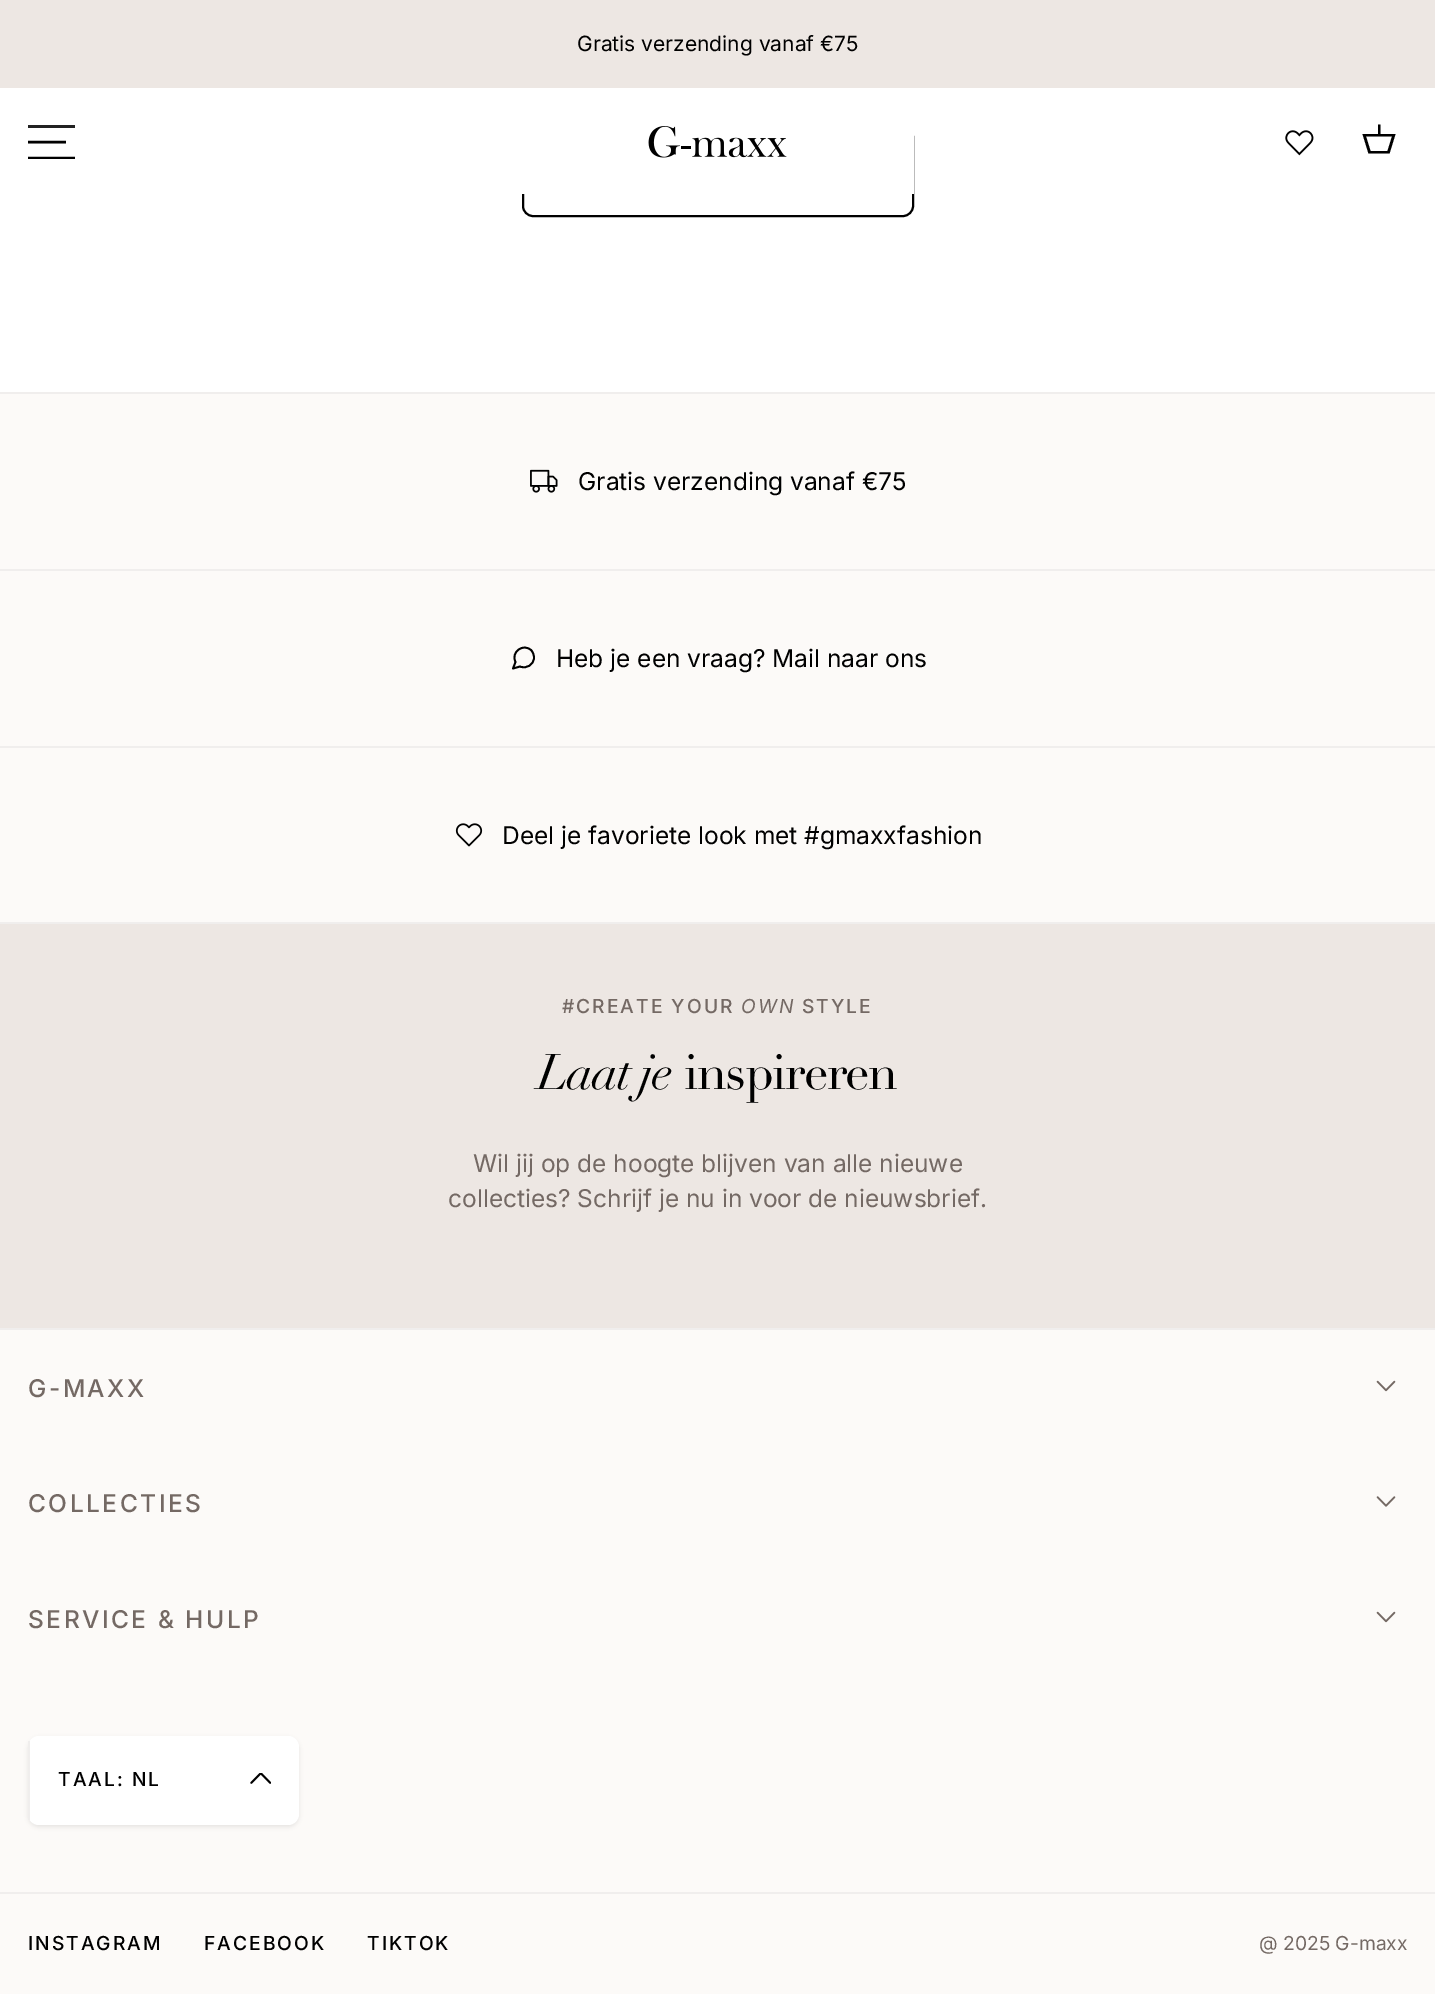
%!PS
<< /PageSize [1435 1994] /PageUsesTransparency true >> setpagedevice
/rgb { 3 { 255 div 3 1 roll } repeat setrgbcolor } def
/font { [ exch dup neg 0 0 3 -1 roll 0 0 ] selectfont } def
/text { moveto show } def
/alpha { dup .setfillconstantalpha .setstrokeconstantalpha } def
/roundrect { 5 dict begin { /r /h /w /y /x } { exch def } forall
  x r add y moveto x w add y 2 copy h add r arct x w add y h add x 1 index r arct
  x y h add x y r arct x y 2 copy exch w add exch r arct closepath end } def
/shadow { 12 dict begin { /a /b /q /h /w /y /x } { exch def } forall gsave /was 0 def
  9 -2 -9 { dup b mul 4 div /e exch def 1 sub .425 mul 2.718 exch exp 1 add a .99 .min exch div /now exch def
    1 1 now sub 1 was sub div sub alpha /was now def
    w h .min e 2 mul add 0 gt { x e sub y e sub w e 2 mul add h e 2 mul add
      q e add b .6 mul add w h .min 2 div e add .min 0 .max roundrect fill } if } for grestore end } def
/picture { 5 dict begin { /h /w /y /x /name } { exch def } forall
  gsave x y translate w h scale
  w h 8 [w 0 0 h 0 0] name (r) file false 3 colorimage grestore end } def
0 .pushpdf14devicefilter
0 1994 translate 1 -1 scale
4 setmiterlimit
255 255 255 rgb
0 0 1435 1994 rectfill
237 231 227 rgb
0 0 1435 88 rectfill
0 0 0 rgb
2 setlinewidth
523 127 390 89 10 roundrect stroke
255 255 255 rgb
522 126 392 68 rectfill
34 34 34 rgb
28 125 47 3 rectfill
0 0 0 rgb
2.6 setlinewidth
28 142 moveto 38 0 rlineto stroke
gsave
28 124 47 35 rectclip
28 158 moveto 47 0 rlineto stroke
grestore
(img_01.rgb) 648 126 139 32 picture
(img_02.rgb) 1285 130 29 26 picture
1378 134 moveto 0 -9.5 rlineto 2.5 0 rlineto 0 9.5 rlineto 15 0 rlineto -6 19.5 rlineto -21 0 rlineto -6 -19.5 rlineto closepath 1366 136.5 moveto 4.5 14.5 rlineto 17 0 rlineto 4.5 -14.5 rlineto closepath fill
252 250 248 rgb
0 394 1435 528 rectfill
240 238 237 rgb
0 392 1435 2 rectfill
0 569 1435 2 rectfill
(img_03.rgb) 530 469 28 24 picture
0 746 1435 2 rectfill
0 0 0 rgb
1.8 setlinewidth
1 setlinecap
1 setlinejoin
534 657.5 moveto 0 7 -7.5 12 -14 9 rcurveto -7 2 rlineto 2.5 -6.5 rlineto -5 -10 8 -19.5 16 -11.5 rcurveto 1.5 2 2.5 4.5 2.5 7 rcurveto closepath stroke
240 238 237 rgb
0 922 1435 2 rectfill
(img_04.rgb) 455 823 28 24 picture
237 231 227 rgb
0 924 1435 404 rectfill
252 250 248 rgb
0 1330 1435 664 rectfill
240 238 237 rgb
0 1328 1435 2 rectfill
(img_05.rgb) 1376 1380 20 12 picture
(img_06.rgb) 1376 1496 20 11 picture
(img_05.rgb) 1376 1611 20 12 picture
0 0 0 rgb
28 1738 271 89 11 2 0.08 shadow
255 255 255 rgb
28 1736 271 89 11 roundrect fill
240 238 237 rgb
28 1741 2 79 rectfill
(img_07.rgb) 250 1773 21 11 picture
0 1892 1435 2 rectfill
/Inter-Regular 21 font
0 0 0 rgb
(Gratis verzending vanaf €75) 577 51 text
/Inter-Regular 24.5 font
(Gratis verzending vanaf €75) 578 490 text
(Heb je een vraag? Mail naar ons) 556 667 text
(Deel je favoriete look met #gmaxxfashion) 502 844 text
/Inter-Medium 19.25 font
116 105 100 rgb
562 1013 moveto 2 0 (#CREATE YOUR) ashow
/Inter-Italic 19.25 font
741 1013 moveto 2 0 (OWN) ashow
/Inter-Medium 19.25 font
802 1013 moveto 2 0 (STYLE) ashow
/Didot-Italic 49 font
0 0 0 rgb
538 1089 moveto -1.5 0 (Laat je) ashow
/Didot-Regular 49 font
684 1089 moveto -1.5 0 (inspireren) ashow
/Inter-Regular 24.5 font
116 105 100 rgb
(Wil jij op de hoogte blijven van alle nieuwe) 473 1172 text
(collecties? Schrijf je nu in voor de nieuwsbrief.) 448 1207 text
/Inter-Medium 24.5 font
28 1397 moveto 2.5 0 (G-MAXX) ashow
28 1512 moveto 2.5 0 (COLLECTIES) ashow
28 1628 moveto 2.5 0 (SERVICE & HULP) ashow
/Inter-Medium 19.25 font
0 0 0 rgb
58 1786 moveto 2 0 (TAAL: NL) ashow
28 1950 moveto 2 0 (INSTAGRAM) ashow
204 1950 moveto 2 0 (FACEBOOK) ashow
367 1950 moveto 2 0 (TIKTOK) ashow
/Inter-Regular 19.25 font
116 105 100 rgb
(@ 2025 G-maxx) 1259 1950 text
.poppdf14devicefilter showpage
